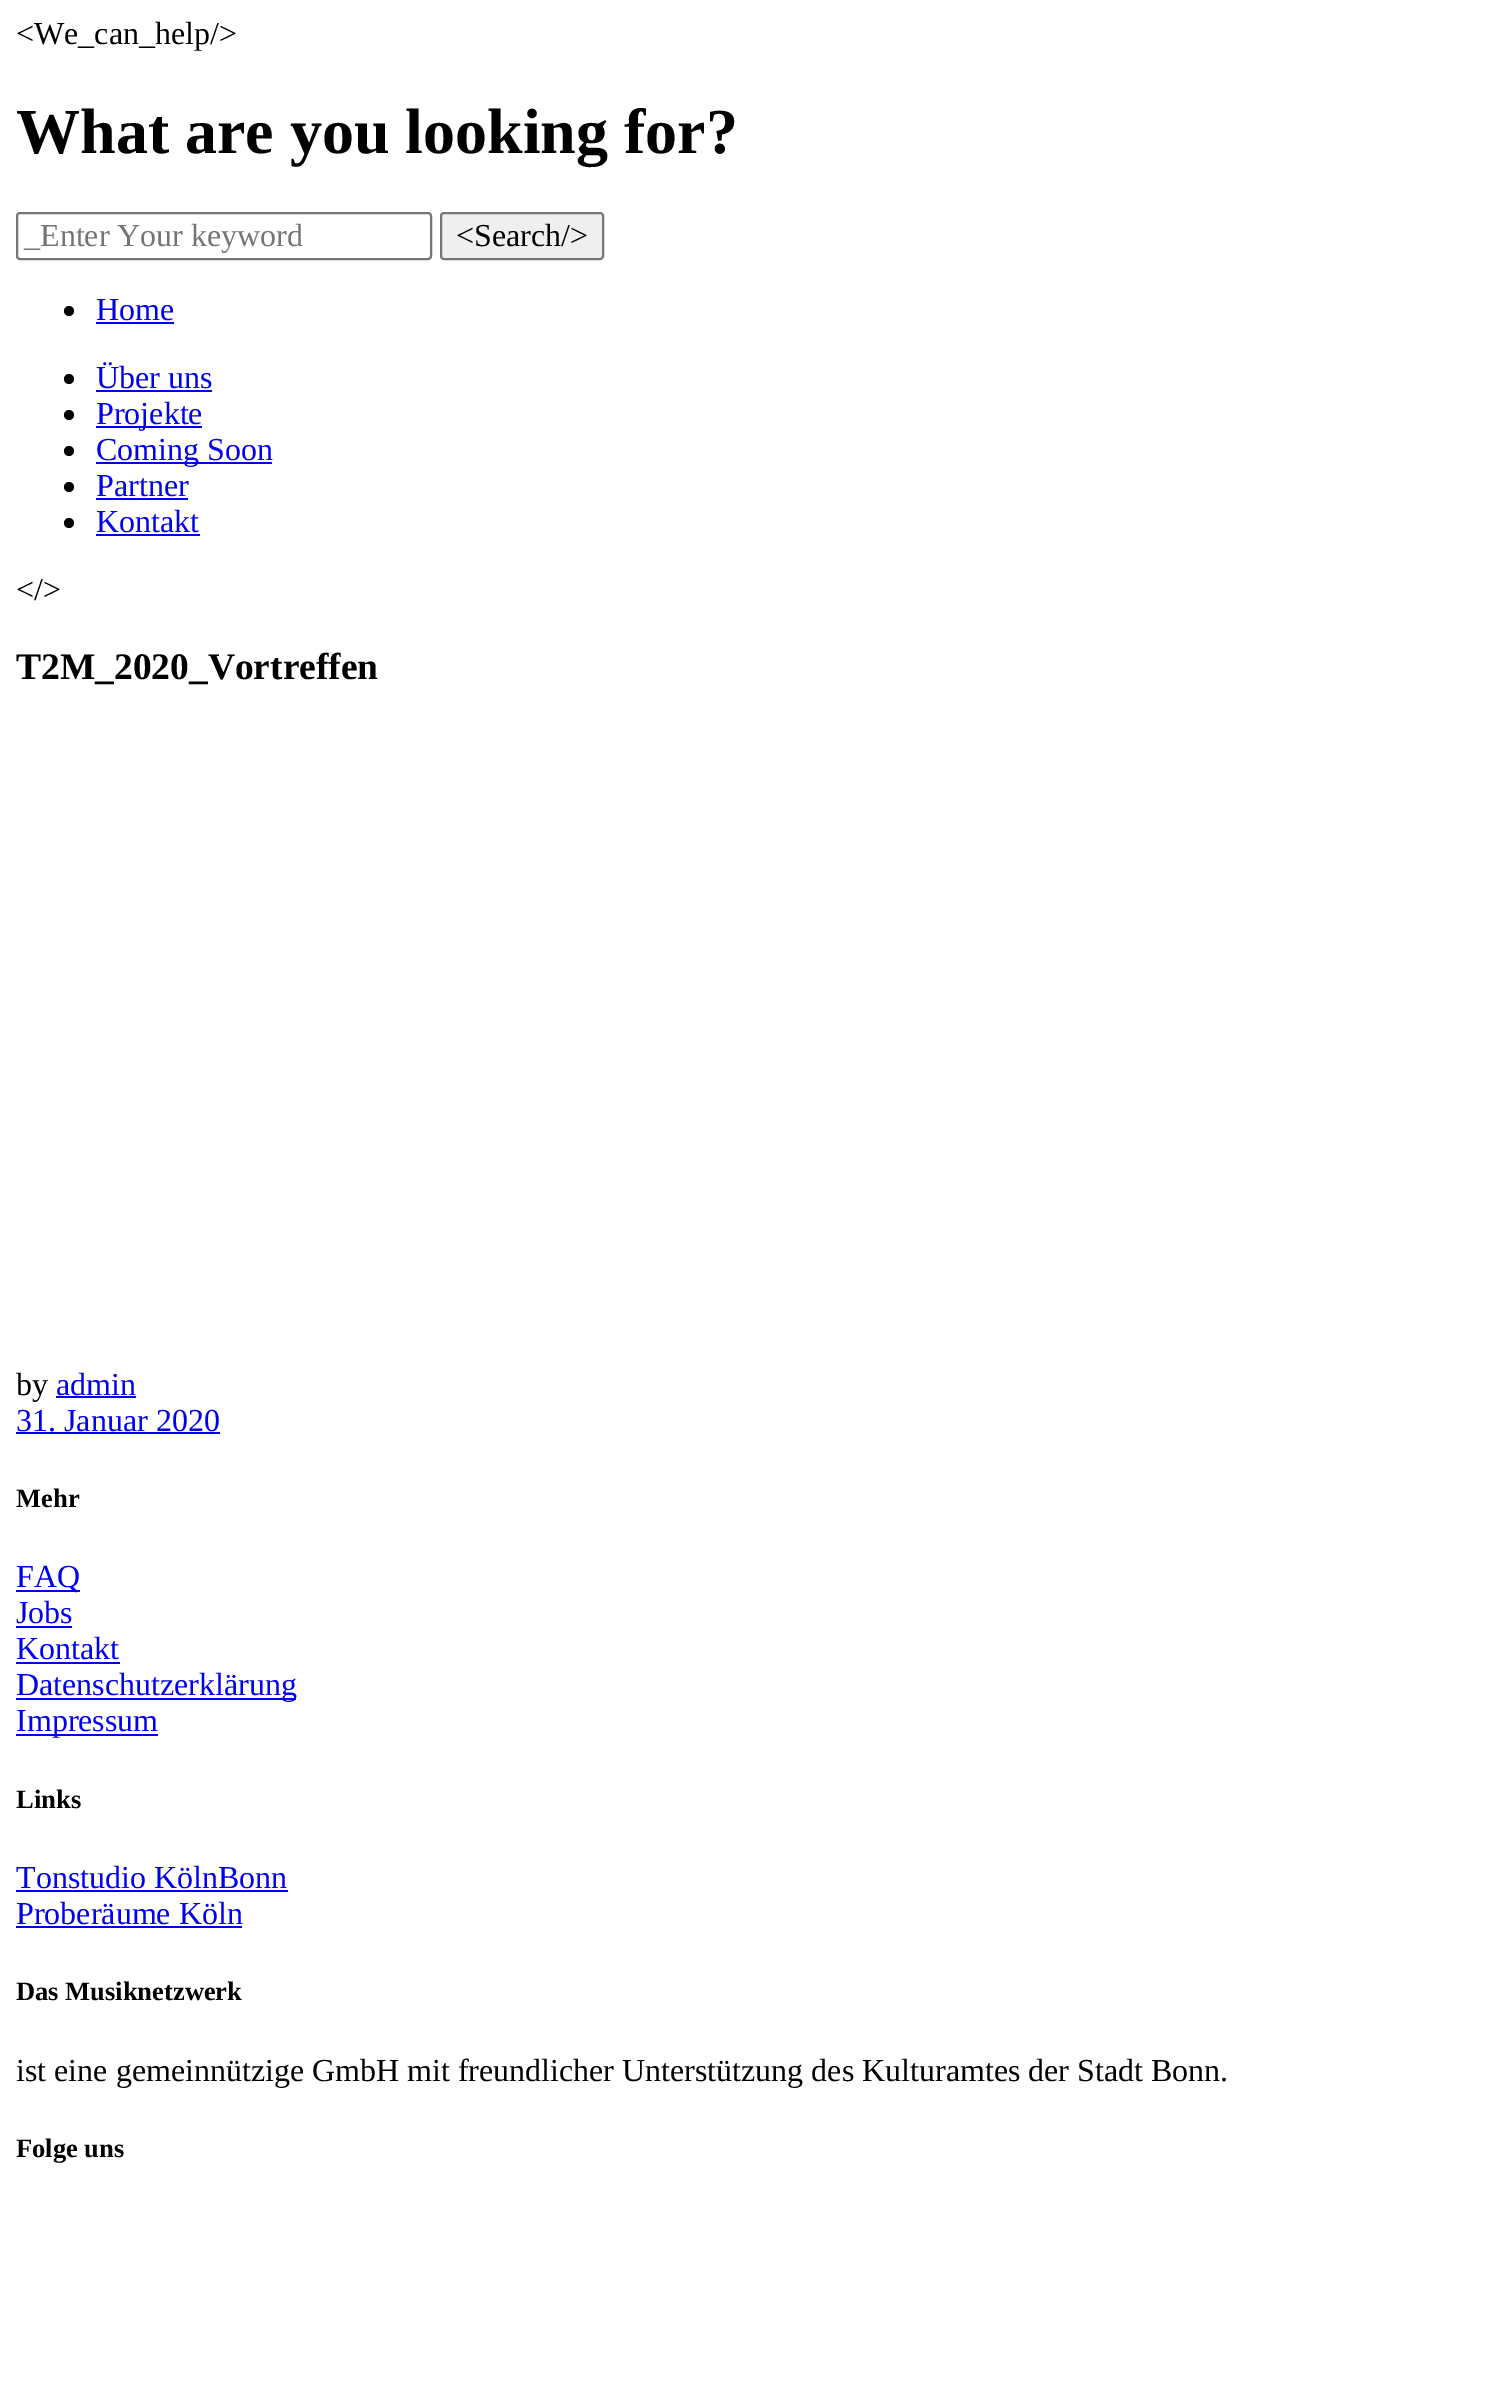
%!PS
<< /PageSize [1495 2405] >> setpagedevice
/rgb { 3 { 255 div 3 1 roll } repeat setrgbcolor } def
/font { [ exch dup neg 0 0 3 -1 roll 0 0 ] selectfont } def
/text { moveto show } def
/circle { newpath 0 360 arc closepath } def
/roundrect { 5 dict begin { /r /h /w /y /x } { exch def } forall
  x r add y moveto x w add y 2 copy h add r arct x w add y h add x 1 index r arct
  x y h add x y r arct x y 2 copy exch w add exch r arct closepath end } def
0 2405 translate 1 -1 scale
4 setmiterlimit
255 255 255 rgb
0 0 1495 2405 rectfill
118 118 118 rgb
2 setlinewidth
17 213 414 46 3 roundrect stroke
239 239 239 rgb
441 213 162 46 3 roundrect gsave fill grestore
118 118 118 rgb
stroke
0 0 0 rgb
69 311 5 circle fill
0 0 238 rgb
96 322 78 2 rectfill
0 0 0 rgb
69 379 5 circle fill
0 0 238 rgb
96 390 116 2 rectfill
0 0 0 rgb
69 415 5 circle fill
0 0 238 rgb
96 426 106 2 rectfill
0 0 0 rgb
69 451 5 circle fill
0 0 238 rgb
96 462 176 2 rectfill
0 0 0 rgb
69 487 5 circle fill
0 0 238 rgb
96 498 92 2 rectfill
0 0 0 rgb
69 523 5 circle fill
0 0 238 rgb
96 534 104 2 rectfill
56 1396 80 2 rectfill
16 1432 204 2 rectfill
16 1590 64 2 rectfill
16 1626 56 2 rectfill
16 1662 104 2 rectfill
16 1698 280 2 rectfill
16 1734 142 2 rectfill
16 1890 272 2 rectfill
16 1926 226 2 rectfill
/LiberationSerif-Regular 32 font
0 0 0 rgb
(<We_can_help/>) 16 44 text
/LiberationSerif-Bold 64 font
(What are you looking for?) 16 153 text
/LiberationSerif-Regular 32 font
117 117 117 rgb
(_Enter Your keyword) 24 246 text
0 0 0 rgb
(<Search/>) 456 246 text
0 0 238 rgb
(Home) 96 320 text
(Über uns) 96 388 text
(Projekte) 96 424 text
(Coming Soon) 96 460 text
(Partner) 96 496 text
(Kontakt) 96 532 text
0 0 0 rgb
(</>) 16 600 text
/LiberationSerif-Bold 37.5 font
(T2M_2020_Vortreffen) 16 679 text
/LiberationSerif-Regular 32 font
(by) 16 1395 text
0 0 238 rgb
(admin) 56 1395 text
(31. Januar 2020) 16 1431 text
/LiberationSerif-Bold 26.5 font
0 0 0 rgb
(Mehr) 16 1507 text
/LiberationSerif-Regular 32 font
0 0 238 rgb
(FAQ) 16 1587 text
(Jobs) 16 1623 text
(Kontakt) 16 1659 text
(Datenschutzerklärung) 16 1695 text
(Impressum) 16 1731 text
/LiberationSerif-Bold 26.5 font
0 0 0 rgb
(Links) 16 1808 text
/LiberationSerif-Regular 32 font
0 0 238 rgb
(Tonstudio KölnBonn) 16 1888 text
(Proberäume Köln) 16 1924 text
/LiberationSerif-Bold 26.5 font
0 0 0 rgb
(Das Musiknetzwerk) 16 2000 text
/LiberationSerif-Regular 32 font
(ist eine gemeinnützige GmbH mit freundlicher Unterstützung des Kulturamtes der Stadt Bonn.) 16 2081 text
/LiberationSerif-Bold 26.5 font
(Folge uns) 16 2157 text
showpage
